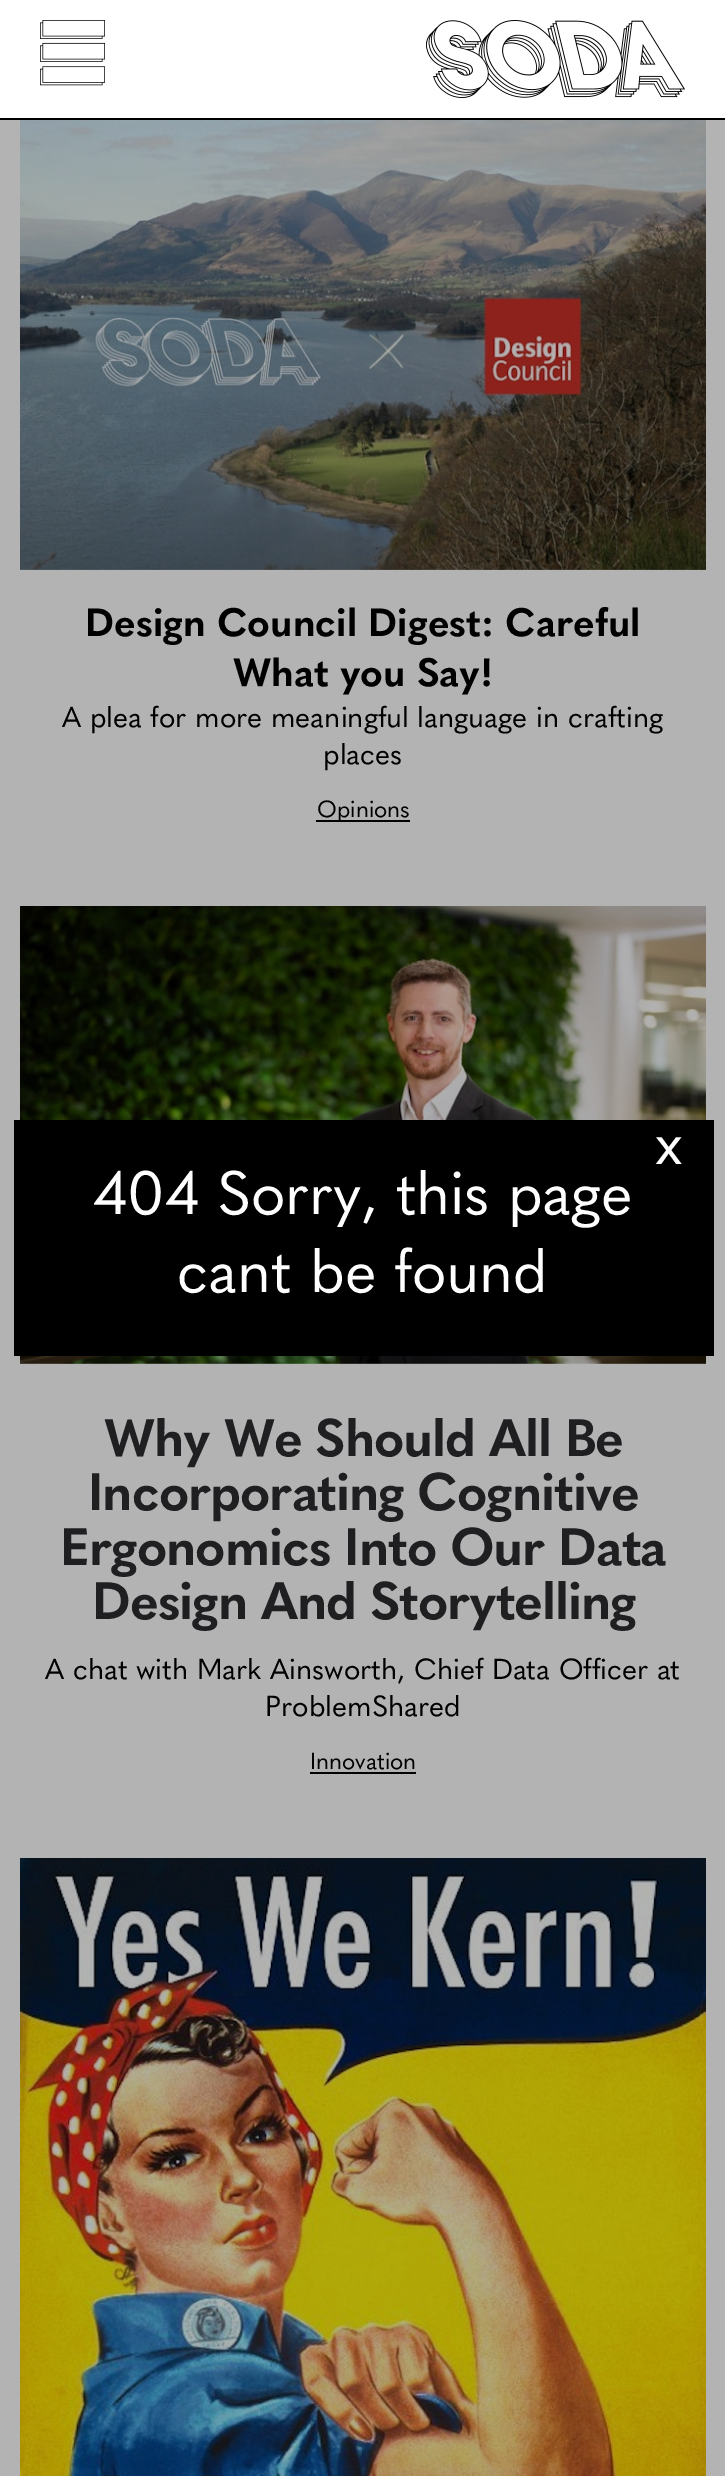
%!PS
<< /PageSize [725 2476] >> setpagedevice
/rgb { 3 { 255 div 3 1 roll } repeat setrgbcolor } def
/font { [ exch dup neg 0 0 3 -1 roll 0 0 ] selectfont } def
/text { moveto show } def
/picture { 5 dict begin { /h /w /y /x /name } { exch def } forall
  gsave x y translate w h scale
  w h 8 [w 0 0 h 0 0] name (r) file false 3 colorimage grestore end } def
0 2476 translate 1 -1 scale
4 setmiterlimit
179 179 179 rgb
0 0 725 2476 rectfill
255 255 255 rgb
0 0 725 118 rectfill
0 0 0 rgb
0 118 725 2 rectfill
(img_01.rgb) 40 20 65 66 picture
(img_02.rgb) 426 20 259 78 picture
(img_03.rgb) 20 120 686 450 picture
316 820 94 2 rectfill
(img_04.rgb) 20 906 686 458 picture
310 1772 106 2 rectfill
(img_05.rgb) 20 1858 686 618 picture
14 1120 700 236 rectfill
/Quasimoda-Bold 39 font
(Design Council Digest: Careful) 85 636 text
(What you Say!) 233 686 text
/Quasimoda-Regular 28.6 font
(A plea for more meaningful language in crafting) 62 727 text
(places) 323 764 text
/Quasimoda-Regular 23 font
(Opinions) 317 817 text
/Quasimoda-Bold 52 font
31 31 34 rgb
104 1456 moveto -1 0 (Why We Should All Be) ashow
88 1510 moveto -1 0 (Incorporating Cognitive) ashow
60 1565 moveto -1 0 (Ergonomics Into Our Data) ashow
92 1619 moveto -1 0 (Design And Storytelling) ashow
/Quasimoda-Regular 28.6 font
0 0 0 rgb
(A chat with Mark Ainsworth, Chief Data Officer at) 45 1679 text
(ProblemShared) 265 1716 text
/Quasimoda-Regular 23 font
(Innovation) 310 1769 text
/Quasimoda-Regular 60 font
255 255 255 rgb
(x) 655 1164 text
(404 Sorry, this page) 93 1214 text
(cant be found) 177 1292 text
showpage
